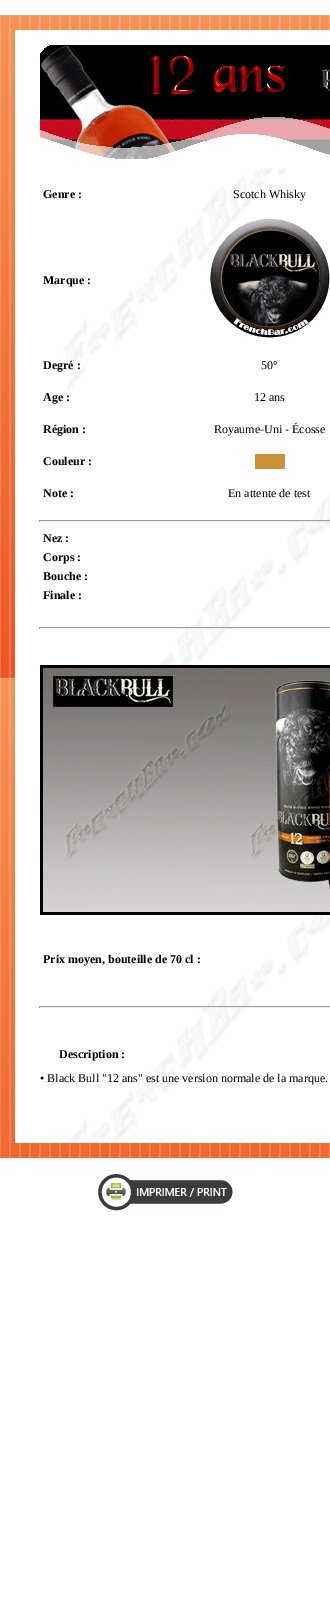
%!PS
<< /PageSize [330 1602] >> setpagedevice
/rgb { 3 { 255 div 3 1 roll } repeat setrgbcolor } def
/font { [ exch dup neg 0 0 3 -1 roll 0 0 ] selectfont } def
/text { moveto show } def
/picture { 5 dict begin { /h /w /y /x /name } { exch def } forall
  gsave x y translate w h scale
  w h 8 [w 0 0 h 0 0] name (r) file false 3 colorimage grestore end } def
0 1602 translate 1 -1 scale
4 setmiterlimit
255 255 255 rgb
0 0 330 1602 rectfill
(img_01.rgb) 0 15 330 1143 picture
(img_02.rgb) 15 30 315 1113 picture
(img_03.rgb) 40 45 290 123 picture
(img_04.rgb) 210 219 120 119 picture
203 144 56 rgb
255 454 30 15 rectfill
159 159 159 rgb
39 520 291 1 rectfill
238 238 238 rgb
39 521 291 1 rectfill
159 159 159 rgb
39 520 1 2 rectfill
39 627 291 1 rectfill
238 238 238 rgb
39 628 291 1 rectfill
159 159 159 rgb
39 627 1 2 rectfill
(img_05.rgb) 40 665 290 250 picture
39 1006 291 1 rectfill
238 238 238 rgb
39 1007 291 1 rectfill
159 159 159 rgb
39 1006 1 2 rectfill
(img_06.rgb) 98 1174 135 37 picture
/LiberationSerif-Bold 12 font
0 0 0 rgb
(Genre :) 43 198 text
/LiberationSerif-Regular 12 font
(Scotch Whisky) 233 198 text
/LiberationSerif-Bold 12 font
(Marque :) 43 284 text
(Degré :) 43 369 text
/LiberationSerif-Regular 12 font
(50°) 261 369 text
/LiberationSerif-Bold 12 font
(Age :) 43 401 text
/LiberationSerif-Regular 12 font
(12 ans) 254 401 text
/LiberationSerif-Bold 12 font
(Région :) 43 433 text
/LiberationSerif-Regular 12 font
(Royaume-Uni - Écosse) 214 433 text
/LiberationSerif-Bold 12 font
(Couleur :) 43 465 text
(Note :) 43 497 text
/LiberationSerif-Regular 12 font
(En attente de test) 228 497 text
/LiberationSerif-Bold 12 font
(Nez :) 43 542 text
(Corps :) 43 561 text
(Bouche :) 43 580 text
(Finale :) 43 599 text
(Prix moyen, bouteille de 70 cl :) 43 963 text
(Description :) 59 1058 text
/LiberationSerif-Regular 12 font
(• Black Bull "12 ans" est une version normale de la marque.) 40 1082 text
showpage
